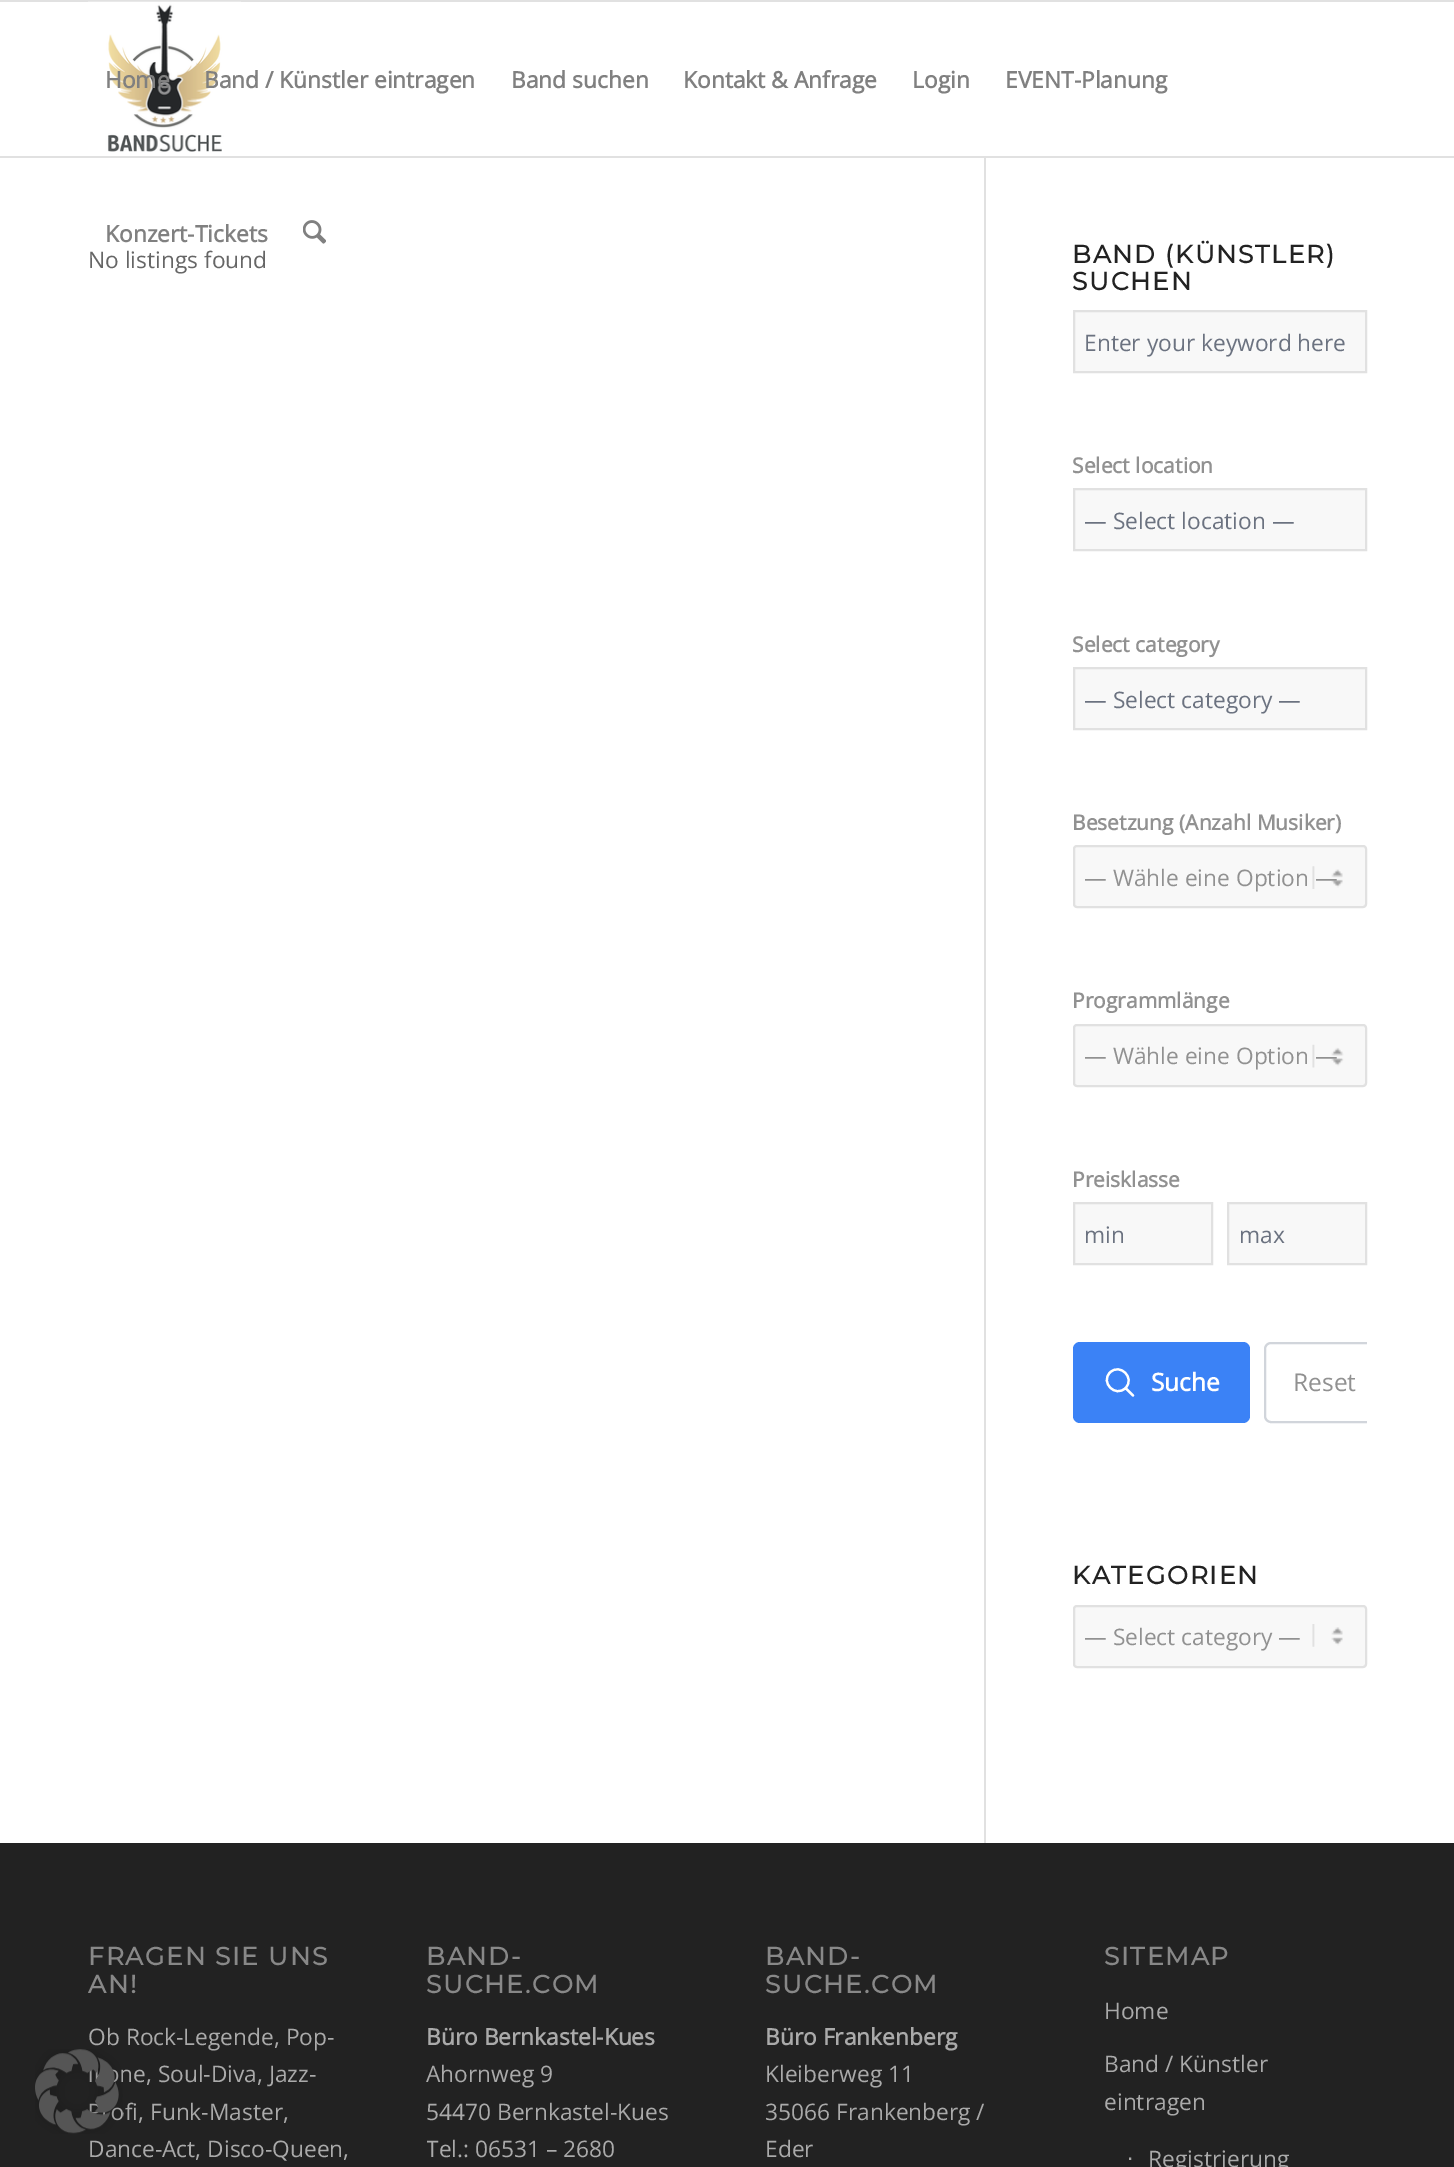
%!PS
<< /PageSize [1454 2167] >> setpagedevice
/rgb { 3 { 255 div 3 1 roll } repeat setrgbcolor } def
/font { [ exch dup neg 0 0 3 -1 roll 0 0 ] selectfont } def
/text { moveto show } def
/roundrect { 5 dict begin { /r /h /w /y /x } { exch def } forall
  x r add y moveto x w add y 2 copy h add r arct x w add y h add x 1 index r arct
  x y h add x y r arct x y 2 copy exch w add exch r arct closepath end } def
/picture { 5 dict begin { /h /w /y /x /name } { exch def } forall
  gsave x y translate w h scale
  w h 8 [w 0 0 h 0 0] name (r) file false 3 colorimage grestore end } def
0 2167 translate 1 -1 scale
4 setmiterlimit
255 255 255 rgb
0 0 1454 2167 rectfill
225 225 225 rgb
0 0 1454 2 rectfill
984 154 2 1689 rectfill
0 156 1454 2 rectfill
(img_02.rgb) 88 1 153 151 picture
(img_03.rgb) 303 220 23 24 picture
255 255 255 rgb
984 154 2 2 rectfill
248 248 248 rgb
1074 311 moveto 292 0 rlineto 0 61 rlineto -292 0 rlineto closepath gsave fill grestore
225 225 225 rgb
2 setlinewidth
stroke
248 248 248 rgb
1074 489 moveto 292 0 rlineto 0 61 rlineto -292 0 rlineto closepath gsave fill grestore
225 225 225 rgb
stroke
248 248 248 rgb
1074 668 moveto 292 0 rlineto 0 61 rlineto -292 0 rlineto closepath gsave fill grestore
225 225 225 rgb
stroke
248 248 248 rgb
1073 845 294 63 4 roundrect fill
(img_04.rgb) 1312 866 31 23 picture
225 225 225 rgb
1074 846 292 61 3 roundrect stroke
248 248 248 rgb
1073 1024 294 63 4 roundrect fill
(img_05.rgb) 1312 1044 32 24 picture
225 225 225 rgb
1074 1025 292 61 3 roundrect stroke
248 248 248 rgb
1074 1203 moveto 138 0 rlineto 0 61 rlineto -138 0 rlineto closepath gsave fill grestore
225 225 225 rgb
stroke
248 248 248 rgb
1228 1203 moveto 138 0 rlineto 0 61 rlineto -138 0 rlineto closepath gsave fill grestore
225 225 225 rgb
stroke
59 130 246 rgb
1073 1342 177 81 7 roundrect fill
255 255 255 rgb
2.2 setlinewidth
1 setlinecap
1 setlinejoin
1133 1395.5 moveto -7.5 -7.5 rlineto 1125.5 1388 moveto 10 -10 -5.5 -25.5 -15.5 -15.5 rcurveto -10 10 5.5 25.5 15.5 15.5 rcurveto closepath stroke
gsave
985 154 382 1689 rectclip
209 213 219 rgb
2 setlinewidth
0 setlinecap
0 setlinejoin
1265 1343 120 79 6 roundrect stroke
grestore
248 248 248 rgb
1073 1605 294 63 4 roundrect fill
(img_06.rgb) 1312 1624 31 23 picture
225 225 225 rgb
2 setlinewidth
0 setlinecap
0 setlinejoin
1074 1606 292 61 3 roundrect stroke
34 34 34 rgb
0 1843 1454 324 rectfill
/OpenSans-Bold 22.75 font
128 128 128 rgb
(Home) 105 88 text
(Band / Künstler eintragen) 204 88 text
(Band suchen) 511 88 text
(Kontakt & Anfrage) 683 88 text
(Login) 912 88 text
(EVENT-Planung) 1005 88 text
(Konzert-Tickets) 105 242 text
/OpenSans-Regular 22.75 font
102 102 102 rgb
(No listings found) 88 268 text
/Montserrat-Bold 25 font
34 34 34 rgb
1072 263 moveto 1.75 0 (BAND \(KÜNSTLER\)) ashow
1072 290 moveto 1.75 0 (SUCHEN) ashow
/OpenSans-Regular 22.75 font
107 114 128 rgb
(Enter your keyword here) 1084 351 text
/OpenSans-Bold 21 font
145 145 145 rgb
(Select location) 1072 473 text
/OpenSans-Regular 22.75 font
107 114 128 rgb
(— Select location —) 1084 529 text
/OpenSans-Bold 21 font
145 145 145 rgb
(Select category) 1072 652 text
/OpenSans-Regular 22.75 font
107 114 128 rgb
(— Select category —) 1084 708 text
/OpenSans-Bold 21 font
145 145 145 rgb
(Besetzung \(Anzahl Musiker\)) 1072 830 text
/OpenSans-Regular 22.75 font
(— Wähle eine Option —) 1084 886 text
/OpenSans-Bold 21 font
(Programmlänge) 1072 1008 text
/OpenSans-Regular 22.75 font
(— Wähle eine Option —) 1084 1064 text
/OpenSans-Bold 21 font
(Preisklasse) 1072 1187 text
/OpenSans-Regular 22.75 font
107 114 128 rgb
(min) 1084 1243 text
(max) 1239 1243 text
/OpenSans-Bold 24.5 font
255 255 255 rgb
(Suche) 1151 1391 text
/OpenSans-Regular 24.5 font
145 145 145 rgb
(Reset) 1293 1391 text
/Montserrat-Bold 25 font
34 34 34 rgb
1072 1584 moveto 1.75 0 (KATEGORIEN) ashow
/OpenSans-Regular 22.75 font
145 145 145 rgb
(— Select category —) 1084 1645 text
/Montserrat-Bold 25 font
136 136 136 rgb
88 1965 moveto 1.75 0 (FRAGEN SIE UNS) ashow
88 1993 moveto 1.75 0 (AN!) ashow
/OpenSans-Regular 22.75 font
170 170 170 rgb
(Ob Rock-Legende, Pop-) 88 2045 text
(ne, Soul-Diva, Jazz-) 119 2082 text
(Profi, Funk-Master,) 88 2120 text
(img_01.rgb) 35 2049 88 85 picture
(Dance-Act, Disco-Queen,) 88 2157 text
/Montserrat-Bold 25 font
136 136 136 rgb
426 1965 moveto 1.75 0 (BAND-) ashow
426 1993 moveto 1.75 0 (SUCHE.COM) ashow
/OpenSans-Bold 22.75 font
170 170 170 rgb
(Büro Bernkastel-Kues) 426 2045 text
/OpenSans-Regular 22.75 font
(Ahornweg 9) 426 2082 text
(54470 Bernkastel-Kues) 426 2120 text
gsave
427 1923 263 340 rectclip
(Tel.: 06531 – 2680) 426 2157 text
grestore
/Montserrat-Bold 25 font
136 136 136 rgb
765 1965 moveto 1.75 0 (BAND-) ashow
765 1993 moveto 1.75 0 (SUCHE.COM) ashow
/OpenSans-Bold 22.75 font
170 170 170 rgb
(Büro Frankenberg) 765 2045 text
/OpenSans-Regular 22.75 font
(Kleiberweg 11) 765 2082 text
(35066 Frankenberg /) 765 2120 text
(Eder) 765 2157 text
/Montserrat-Bold 25 font
136 136 136 rgb
1104 1965 moveto 1.75 0 (SITEMAP) ashow
/OpenSans-Regular 22.75 font
170 170 170 rgb
(Home) 1104 2019 text
(Band / Künstler) 1104 2072 text
(eintragen) 1104 2110 text
/LiberationSans-Regular 22.75 font
(∙) 1127 2165 text
/OpenSans-Regular 22.75 font
(Registrierung) 1148 2167 text
showpage
